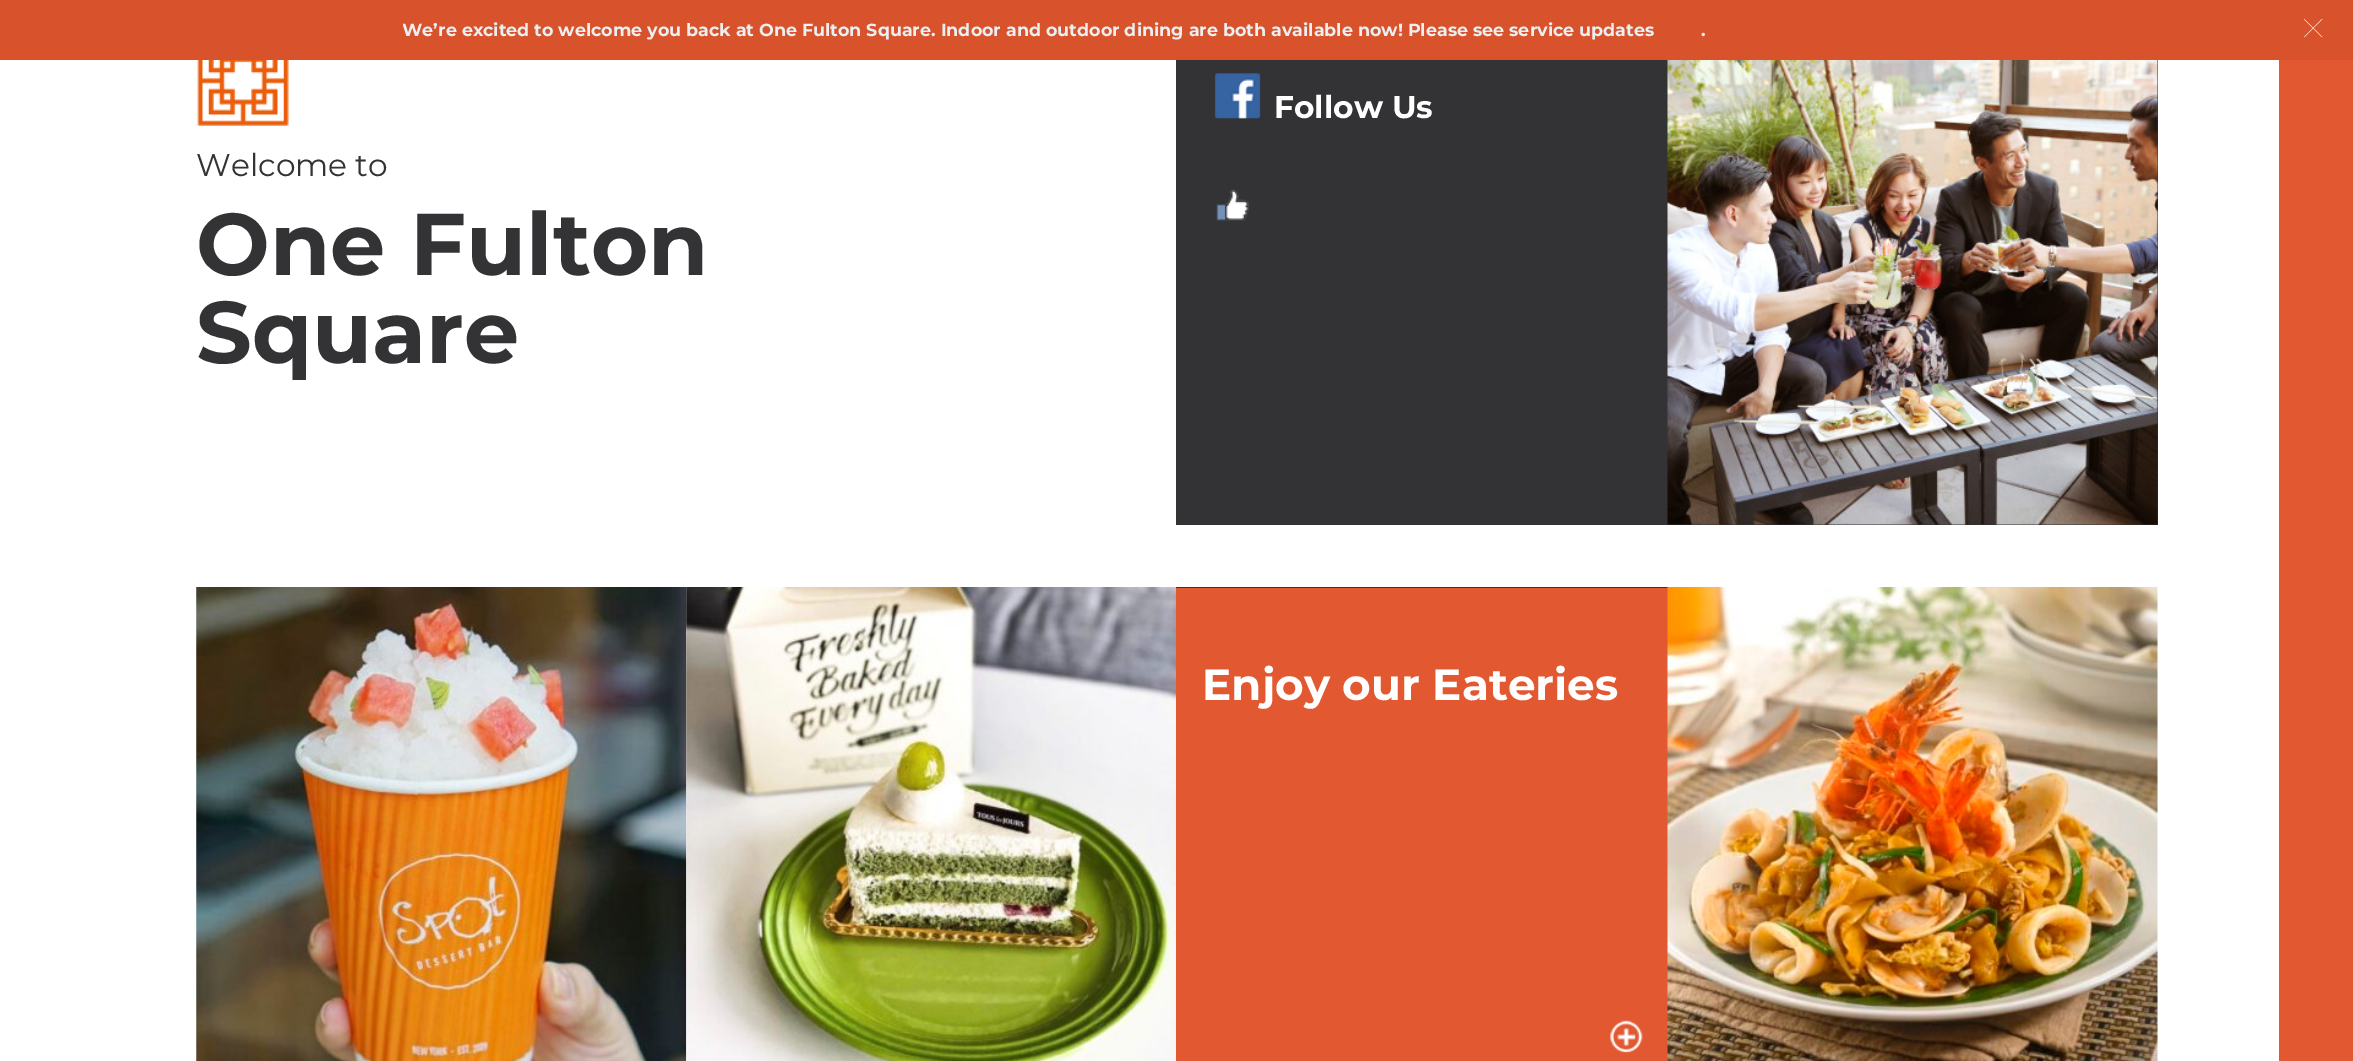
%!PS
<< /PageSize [2353 1061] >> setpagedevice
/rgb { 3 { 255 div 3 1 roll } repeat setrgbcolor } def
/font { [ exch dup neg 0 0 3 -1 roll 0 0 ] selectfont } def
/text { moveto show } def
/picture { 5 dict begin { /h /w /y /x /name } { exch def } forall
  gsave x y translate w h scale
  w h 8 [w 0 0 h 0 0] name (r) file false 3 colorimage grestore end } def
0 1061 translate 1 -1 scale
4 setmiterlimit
255 255 255 rgb
0 0 2353 1061 rectfill
216 83 43 rgb
0 0 2353 60 rectfill
(img_01.rgb) 2303 18 20 20 picture
51 51 53 rgb
1176 60 982 465 rectfill
(img_02.rgb) 1214 73 47 46 picture
(img_03.rgb) 1216 189 33 32 picture
(img_04.rgb) 1667 60 491 465 picture
(img_05.rgb) 197 60 92 66 picture
(img_06.rgb) 196 587 491 474 picture
(img_07.rgb) 686 587 490 474 picture
1176 587 492 1 rectfill
226 88 49 rgb
1176 588 492 473 rectfill
(img_08.rgb) 1610 1020 33 33 picture
(img_09.rgb) 1667 587 491 474 picture
2279 60 74 1001 rectfill
gsave
403 13 1500 35 rectclip
/Montserrat-Bold 17.5 font
236 239 241 rgb
(We’re excited to welcome you back at One Fulton Square. Indoor and outdoor dining are both available now! Please see service updates) 402 36 text
grestore
/Montserrat-Bold 17.5 font
236 239 241 rgb
(.) 1701 36 text
/Montserrat-Bold 31.25 font
255 255 255 rgb
(Follow Us) 1274 118 text
/Montserrat-Regular 31.25 font
51 51 53 rgb
(Welcome to) 196 176 text
/Montserrat-Bold 87.5 font
(One Fulton) 196 275 text
(Square) 196 363 text
/Montserrat-Bold 43.75 font
255 255 255 rgb
(Enjoy our Eateries) 1202 700 text
showpage
